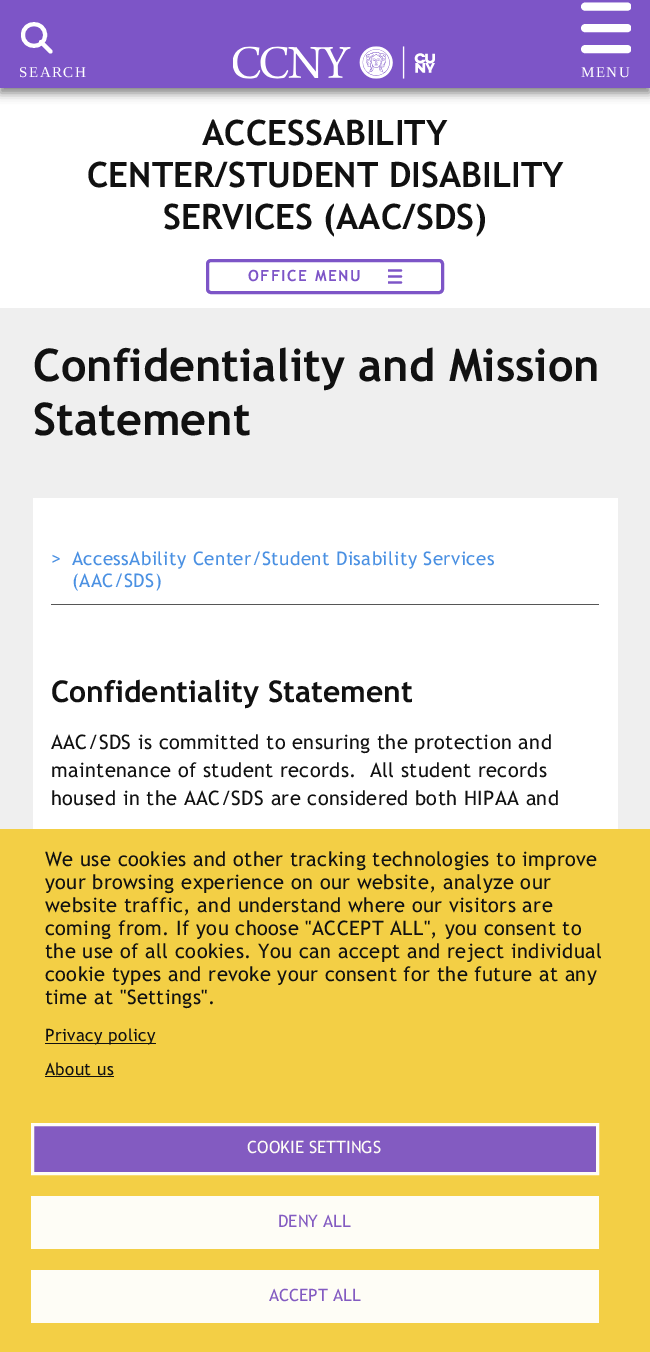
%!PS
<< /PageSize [650 1352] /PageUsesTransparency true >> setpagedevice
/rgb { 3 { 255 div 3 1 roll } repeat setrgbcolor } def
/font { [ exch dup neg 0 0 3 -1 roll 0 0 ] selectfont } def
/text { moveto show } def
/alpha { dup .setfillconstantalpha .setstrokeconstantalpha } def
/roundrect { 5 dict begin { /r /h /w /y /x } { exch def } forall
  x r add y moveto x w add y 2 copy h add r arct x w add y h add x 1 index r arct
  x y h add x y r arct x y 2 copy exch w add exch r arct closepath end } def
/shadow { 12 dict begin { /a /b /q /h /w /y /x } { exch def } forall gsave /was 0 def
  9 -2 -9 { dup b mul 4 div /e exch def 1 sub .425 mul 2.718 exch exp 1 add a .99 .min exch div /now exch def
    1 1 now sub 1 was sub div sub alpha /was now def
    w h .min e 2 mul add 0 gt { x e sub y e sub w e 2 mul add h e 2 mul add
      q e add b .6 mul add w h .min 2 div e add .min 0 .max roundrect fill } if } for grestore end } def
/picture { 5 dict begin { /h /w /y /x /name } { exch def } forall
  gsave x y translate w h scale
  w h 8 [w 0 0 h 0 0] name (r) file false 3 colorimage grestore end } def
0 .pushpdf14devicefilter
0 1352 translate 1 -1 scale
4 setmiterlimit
255 255 255 rgb
0 0 650 1352 rectfill
0 0 0 rgb
0 5 650 88 0 5 0.5 shadow
125 85 199 rgb
0 0 650 88 rectfill
255 255 255 rgb
4 setlinewidth
1 setlinecap
1 setlinejoin
45 35 moveto 0 14.5 -22 14.5 -22 0 rcurveto 0 -14.5 22 -14.5 22 0 rcurveto closepath 41 42 moveto 9.5 9.5 rlineto stroke
(img_01.rgb) 233 46 202 33 picture
gsave
581 1 50 54 rectclip
8 setlinewidth
585 6.5 moveto 42.5 0 rlineto 585 28 moveto 42.5 0 rlineto 585 49 moveto 42.5 0 rlineto stroke
grestore
125 85 199 rgb
3 setlinewidth
0 setlinecap
0 setlinejoin
207.5 260.5 235 32 3.5 roundrect stroke
gsave
388 269 15 15 rectclip
2.3 setlinewidth
1 setlinecap
1 setlinejoin
388.5 270.5 moveto 12.5 0 rlineto 388.5 276.5 moveto 12.5 0 rlineto 388.5 282.5 moveto 12.5 0 rlineto stroke
grestore
239 239 239 rgb
0 308 650 521 rectfill
255 255 255 rgb
33 498 585 331 rectfill
86 86 86 rgb
51 604 548 1 rectfill
243 207 69 rgb
0 829 650 523 rectfill
17 17 17 rgb
45 1043 111 1 rectfill
45 1076 69 1 rectfill
131 91 193 rgb
32.5 1124.5 moveto 565 0 rlineto 0 49 rlineto -565 0 rlineto closepath gsave fill grestore
254 253 246 rgb
stroke
31 1196 568 53 rectfill
31 1270 568 53 rectfill
/LiberationSerif-Regular 15 font
255 255 255 rgb
19 77 moveto 1.5 0 (SEARCH) ashow
581 77 moveto 1.5 0 (MENU) ashow
/TrebuchetMS-Bold 35 font
17 17 17 rgb
(ACCESSABILITY) 202 145 text
(CENTER/STUDENT DISABILITY) 87 187 text
(SERVICES \(AAC/SDS\)) 163 229 text
/TrebuchetMS-Bold 15.5 font
125 85 199 rgb
248 281 moveto 1.5 0 (OFFICE MENU) ashow
/TrebuchetMS-Bold 45 font
17 17 17 rgb
(Confidentiality and Mission) 33 381 text
(Statement) 33 435 text
/TrebuchetMS-Regular 20 font
74 144 226 rgb
51 565 moveto 0.4 0 (>) ashow
/TrebuchetMS-Regular 18.75 font
72 565 moveto 0.4 0 (AccessAbility Center/Student Disability Services) ashow
72 587 moveto 0.4 0 (\(AAC/SDS\)) ashow
/TrebuchetMS-Bold 30 font
17 17 17 rgb
(Confidentiality Statement) 51 702 text
/TrebuchetMS-Regular 20 font
51 749 moveto 0.4 0 (AAC/SDS is committed to ensuring the protection and) ashow
51 777 moveto 0.4 0 (maintenance of student records.  All student records) ashow
51 805 moveto 0.4 0 (housed in the AAC/SDS are considered both HIPAA and) ashow
45 866 moveto 0.4 0 (We use cookies and other tracking technologies to improve) ashow
45 889 moveto 0.4 0 (your browsing experience on our website, analyze our) ashow
45 912 moveto 0.4 0 (website traffic, and understand where our visitors are) ashow
45 935 moveto 0.4 0 (coming from. If you choose "ACCEPT ALL", you consent to) ashow
45 958 moveto 0.4 0 (the use of all cookies. You can accept and reject individual) ashow
45 981 moveto 0.4 0 (cookie types and revoke your consent for the future at any) ashow
45 1004 moveto 0.4 0 (time at "Settings".) ashow
/TrebuchetMS-Regular 17 font
45 1041 moveto 0.4 0 (Privacy policy) ashow
45 1075 moveto 0.4 0 (About us) ashow
254 253 246 rgb
(COOKIE SETTINGS) 247 1153 text
131 91 193 rgb
(DENY ALL) 278 1227 text
(ACCEPT ALL) 269 1301 text
.poppdf14devicefilter showpage
